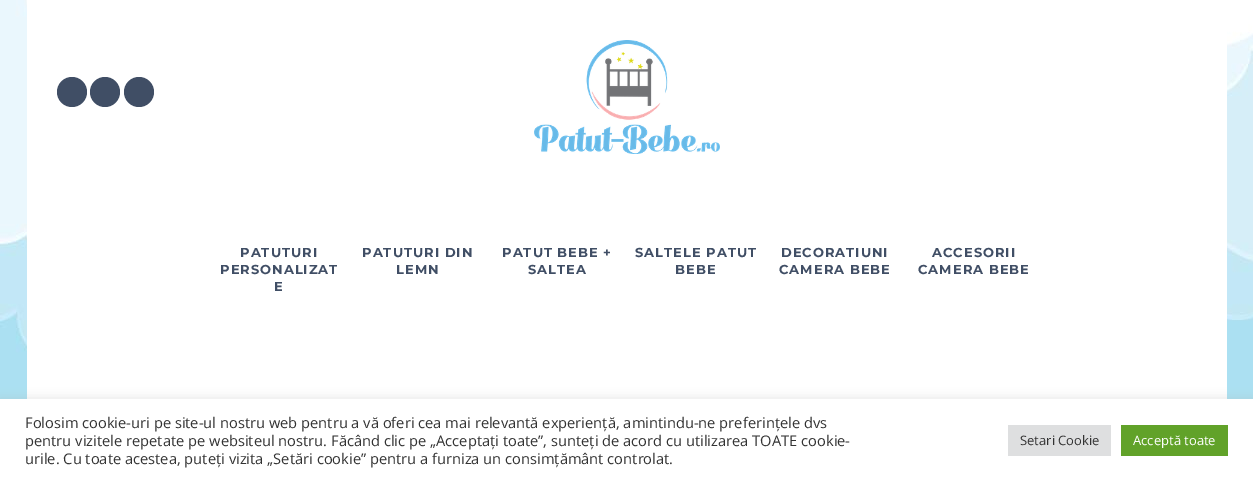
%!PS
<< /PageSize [1253 481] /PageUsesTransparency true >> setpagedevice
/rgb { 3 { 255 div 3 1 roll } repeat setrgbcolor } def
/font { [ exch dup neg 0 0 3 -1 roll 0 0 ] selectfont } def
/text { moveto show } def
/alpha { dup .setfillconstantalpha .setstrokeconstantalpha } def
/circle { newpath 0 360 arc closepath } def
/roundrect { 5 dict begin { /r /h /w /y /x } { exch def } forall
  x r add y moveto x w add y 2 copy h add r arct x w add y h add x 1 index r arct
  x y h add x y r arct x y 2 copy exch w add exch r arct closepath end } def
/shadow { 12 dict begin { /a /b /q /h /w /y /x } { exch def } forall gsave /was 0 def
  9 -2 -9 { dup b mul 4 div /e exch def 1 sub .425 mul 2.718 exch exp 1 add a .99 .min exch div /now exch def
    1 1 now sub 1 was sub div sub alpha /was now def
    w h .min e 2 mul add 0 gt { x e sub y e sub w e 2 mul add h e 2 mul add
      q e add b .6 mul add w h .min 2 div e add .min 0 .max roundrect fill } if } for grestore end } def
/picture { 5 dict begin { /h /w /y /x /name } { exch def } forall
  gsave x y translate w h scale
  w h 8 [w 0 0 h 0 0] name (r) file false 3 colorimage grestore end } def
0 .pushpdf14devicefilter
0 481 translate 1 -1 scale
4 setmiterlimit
255 255 255 rgb
0 0 1253 481 rectfill
(img_01.rgb) 0 0 1253 399 picture
27 0 1200 399 rectfill
64 78 101 rgb
72 92 15 circle fill
105 92 15 circle fill
139 92 15 circle fill
(img_02.rgb) 534 40 186 114 picture
172 171 171 rgb
0 398 1253 82 0 5 0.3 shadow
255 255 255 rgb
0 399 1253 82 rectfill
222 223 224 rgb
1008 425 103 31 rectfill
97 162 41 rgb
1121 425 107 31 rectfill
/Montserrat-Bold 13 font
64 78 101 rgb
240 257 moveto 1 0 (PATUTURI) ashow
220 274 moveto 1 0 (PERSONALIZAT) ashow
274 291 moveto 1 0 (E) ashow
362 257 moveto 1 0 (PATUTURI DIN) ashow
396 274 moveto 1 0 (LEMN) ashow
502 257 moveto 1 0 (PATUT BEBE +) ashow
528 274 moveto 1 0 (SALTEA) ashow
635 257 moveto 1 0 (SALTELE PATUT) ashow
675 274 moveto 1 0 (BEBE) ashow
781 257 moveto 1 0 (DECORATIUNI) ashow
779 274 moveto 1 0 (CAMERA BEBE) ashow
932 257 moveto 1 0 (ACCESORII) ashow
918 274 moveto 1 0 (CAMERA BEBE) ashow
/OpenSans-Regular 14.67 font
51 51 51 rgb
(Folosim cookie-uri pe site-ul nostru web pentru a vă oferi cea mai relevantă experiență, amintindu-ne preferințele dvs) 25 428 text
(pentru vizitele repetate pe websiteul nostru. Făcând clic pe „Acceptați toate”, sunteți de acord cu utilizarea TOATE cookie-) 25 446 text
(urile. Cu toate acestea, puteți vizita „Setări cookie” pentru a furniza un consimțământ controlat.) 25 464 text
/OpenSans-Regular 13 font
(Setari Cookie) 1020 445 text
255 255 255 rgb
(Acceptă toate) 1133 445 text
.poppdf14devicefilter showpage
